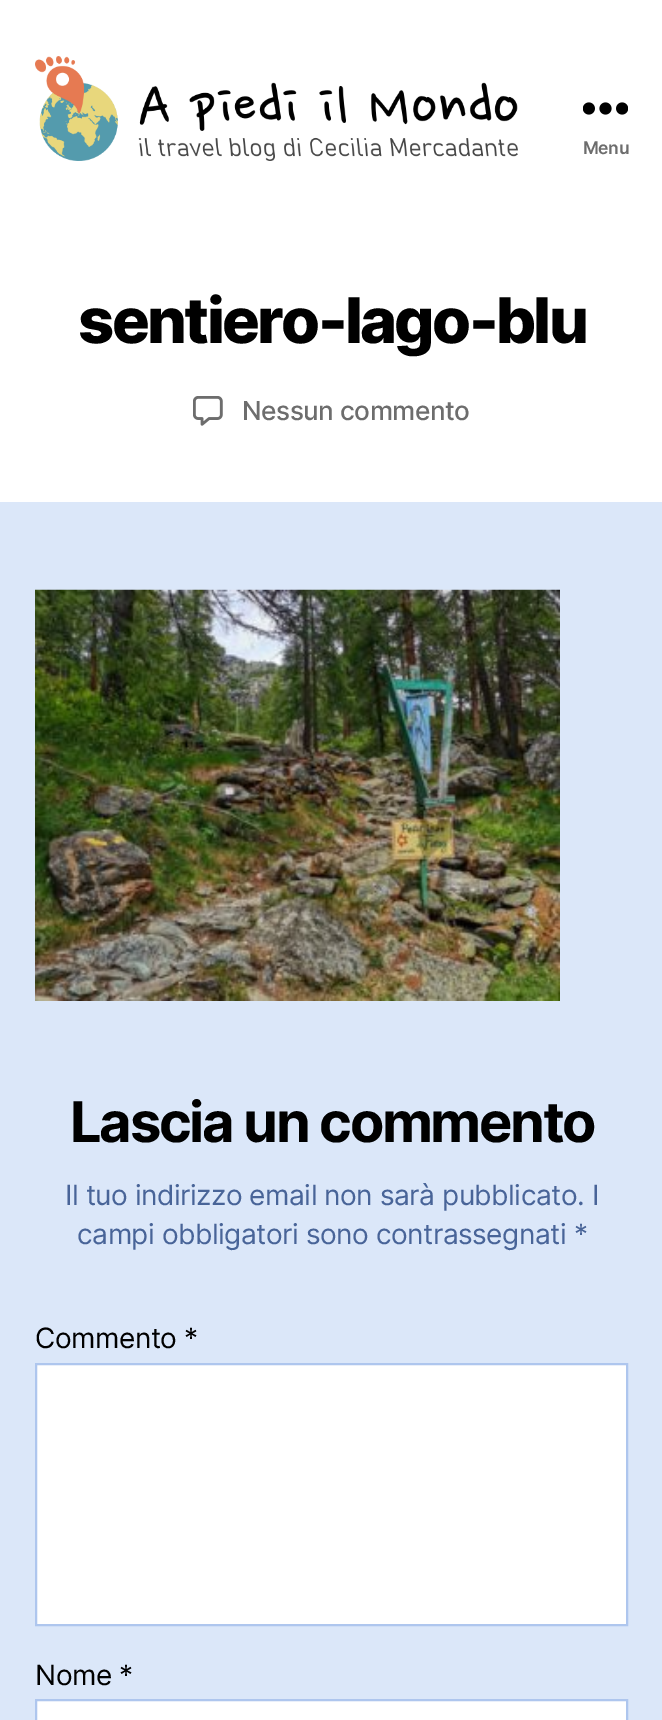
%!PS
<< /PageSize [662 1720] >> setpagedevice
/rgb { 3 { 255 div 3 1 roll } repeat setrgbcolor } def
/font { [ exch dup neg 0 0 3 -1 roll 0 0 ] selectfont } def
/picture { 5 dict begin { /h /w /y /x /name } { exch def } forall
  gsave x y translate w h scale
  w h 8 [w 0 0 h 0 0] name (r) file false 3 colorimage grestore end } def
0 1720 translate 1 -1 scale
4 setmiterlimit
219 231 249 rgb
0 0 662 1720 rectfill
255 255 255 rgb
0 0 662 502 rectfill
(img_01.rgb) 35 56 483 105 picture
(img_02.rgb) 583 102 45 13 picture
(img_03.rgb) 193 396 30 30 picture
(img_04.rgb) 35 589 525 412 picture
36 1364 moveto 591 0 rlineto 0 261 rlineto -591 0 rlineto closepath gsave fill grestore
174 198 238 rgb
2 setlinewidth
stroke
255 255 255 rgb
36 1700 moveto 591 0 rlineto 0 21 rlineto -591 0 rlineto closepath gsave fill grestore
174 198 238 rgb
stroke
/Inter-SemiBold 17.5 font
109 109 109 rgb
583 154 moveto -0.45 0 (Menu) ashow
/Inter-ExtraBold 63 font
0 0 0 rgb
78 343 moveto -2.6 0 (sentiero-lago-blu) ashow
/Inter-Medium 26.25 font
109 109 109 rgb
242 420 moveto -0.5 0 (Nessun commento) ashow
/Inter-Bold 56 font
0 0 0 rgb
70 1142 moveto -2.3 0 (Lascia un commento) ashow
/Inter-Regular 28 font
72 100 152 rgb
65 1205 moveto -0.45 0 (Il tuo indirizzo email non sarà pubblicato. I) ashow
77 1244 moveto -0.45 0 (campi obbligatori sono contrassegnati *) ashow
0 0 0 rgb
35 1348 moveto -0.45 0 (Commento *) ashow
35 1685 moveto -0.45 0 (Nome *) ashow
showpage
